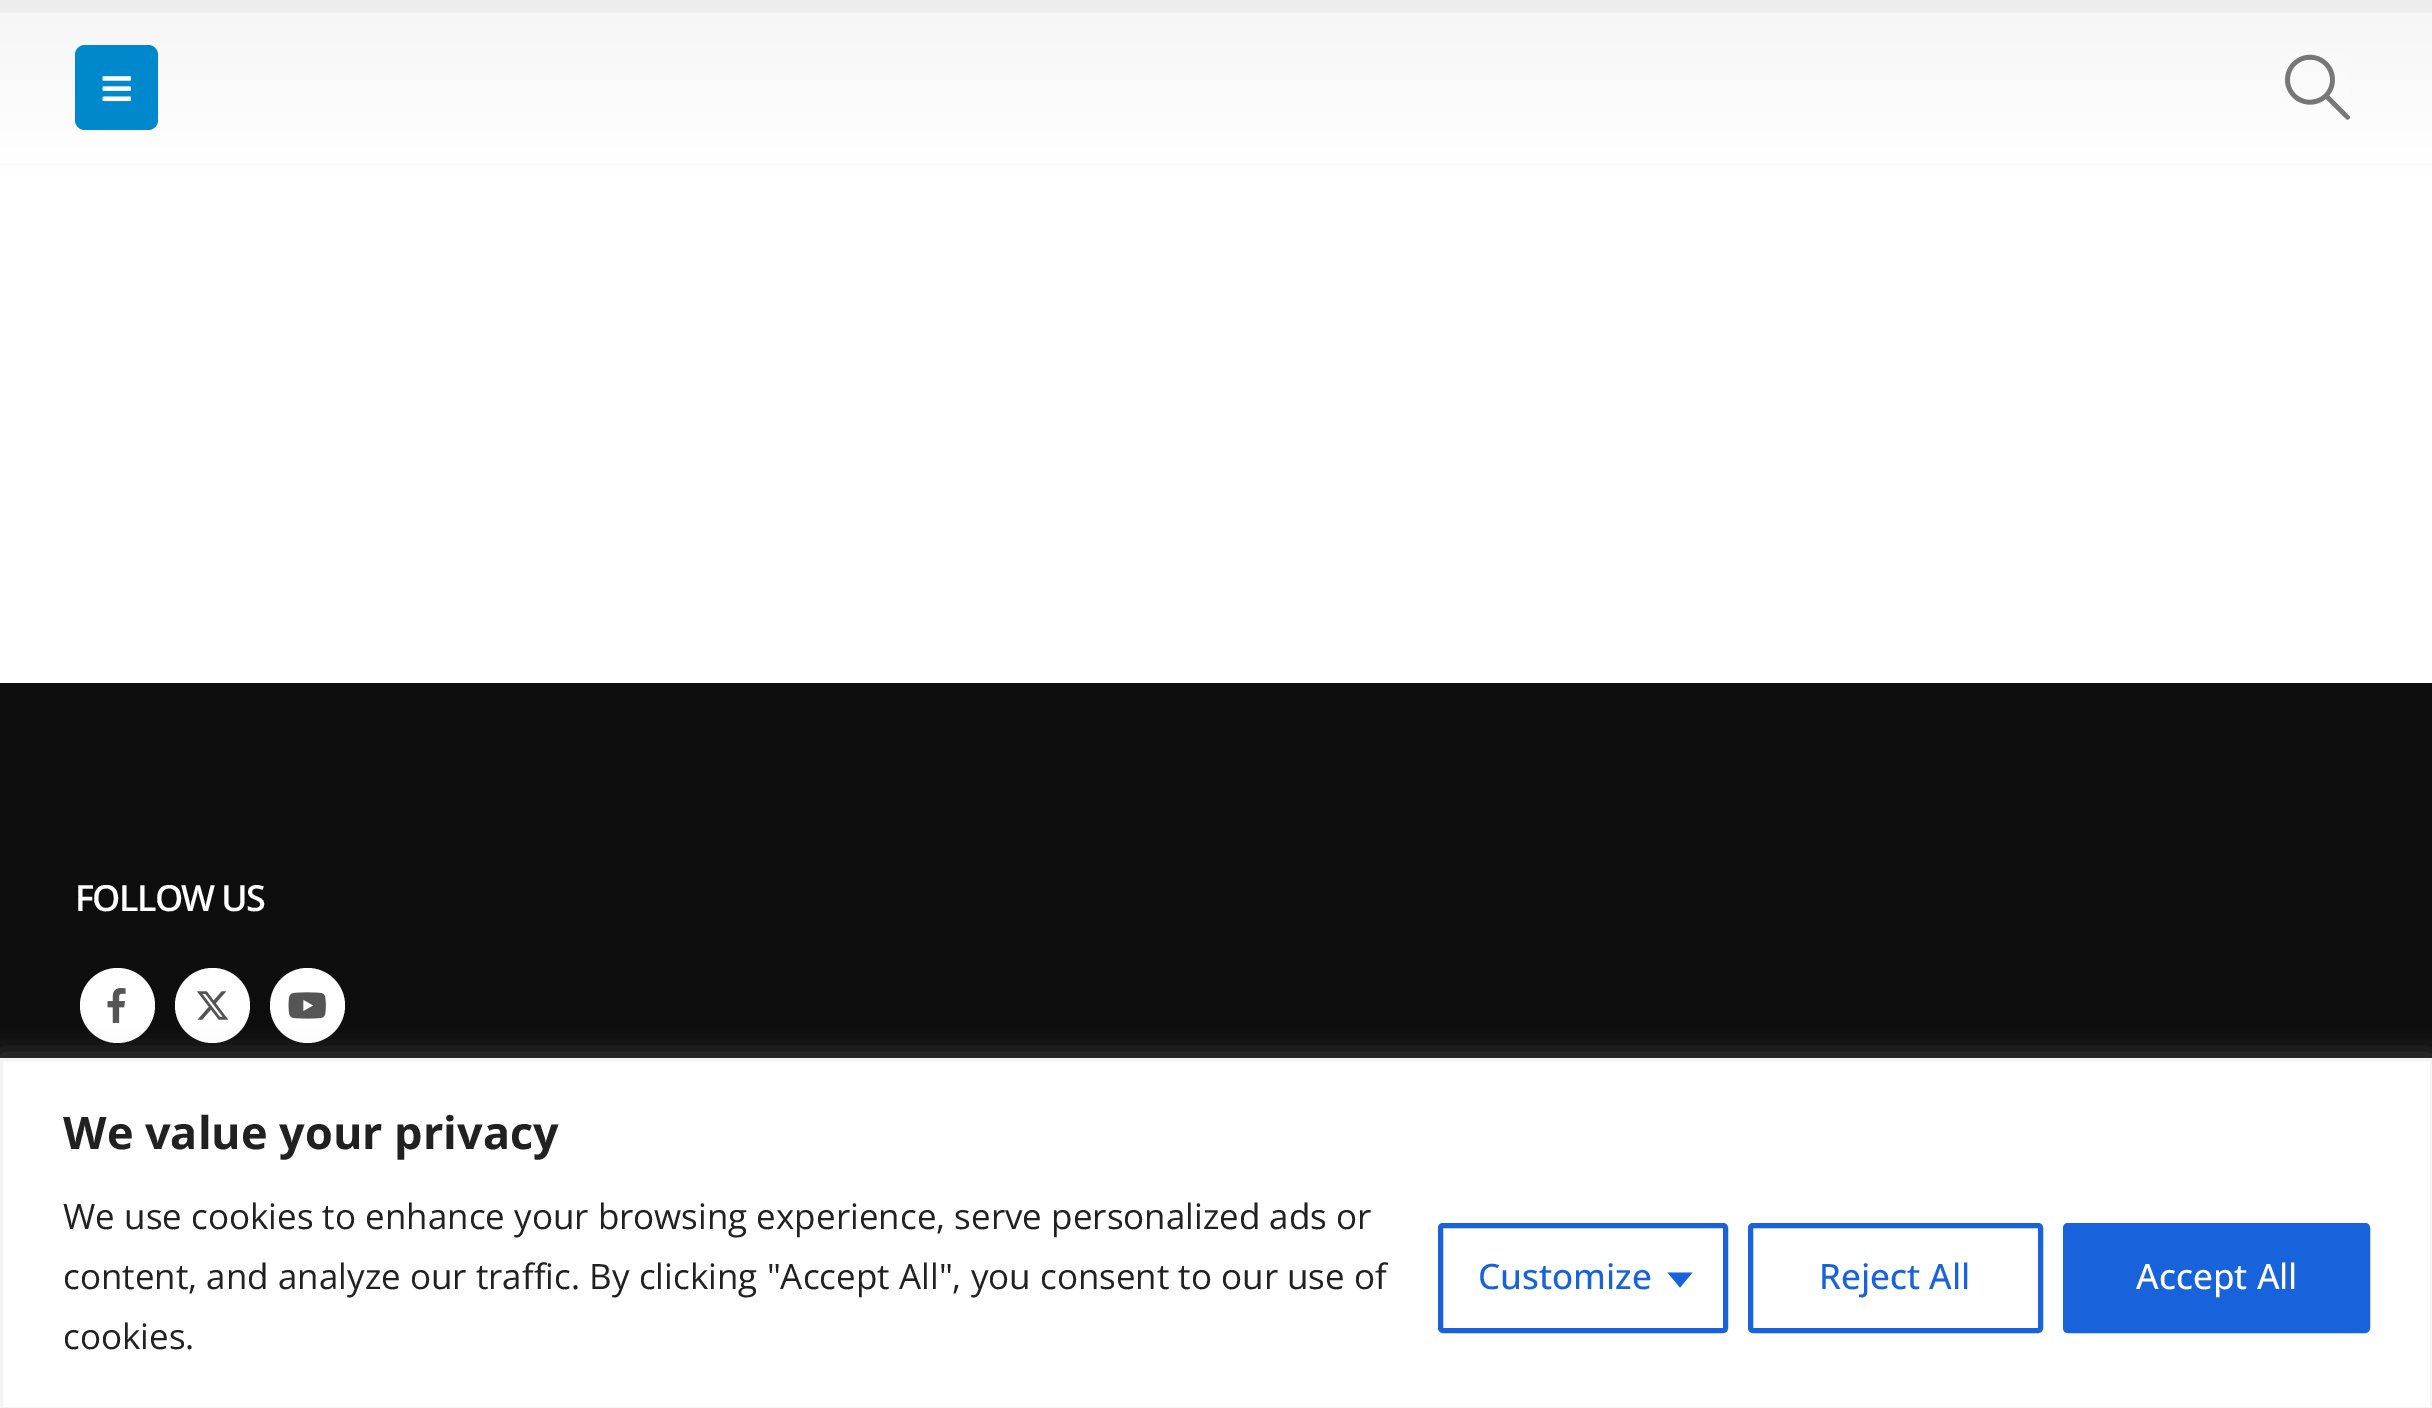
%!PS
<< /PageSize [2432 1408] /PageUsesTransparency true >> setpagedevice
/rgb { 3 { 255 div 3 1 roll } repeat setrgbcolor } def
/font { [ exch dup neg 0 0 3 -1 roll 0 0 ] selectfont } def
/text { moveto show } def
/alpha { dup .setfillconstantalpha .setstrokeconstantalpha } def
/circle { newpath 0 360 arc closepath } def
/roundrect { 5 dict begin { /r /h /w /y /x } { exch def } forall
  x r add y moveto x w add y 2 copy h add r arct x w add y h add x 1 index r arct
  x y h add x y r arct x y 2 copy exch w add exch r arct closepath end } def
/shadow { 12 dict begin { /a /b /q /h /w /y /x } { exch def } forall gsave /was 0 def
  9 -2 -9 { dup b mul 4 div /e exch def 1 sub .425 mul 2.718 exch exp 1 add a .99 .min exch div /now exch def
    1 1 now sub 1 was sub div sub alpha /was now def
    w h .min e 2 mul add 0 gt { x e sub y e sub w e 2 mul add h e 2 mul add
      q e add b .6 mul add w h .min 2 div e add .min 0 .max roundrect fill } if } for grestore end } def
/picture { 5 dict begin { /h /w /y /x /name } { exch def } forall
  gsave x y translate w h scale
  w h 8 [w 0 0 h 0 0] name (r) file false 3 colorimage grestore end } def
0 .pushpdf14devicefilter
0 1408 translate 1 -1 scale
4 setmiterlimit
255 255 255 rgb
0 0 2432 1408 rectfill
0 0 0 rgb
0 0 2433 163 0 4 0.06 shadow
gsave 0 13 moveto 2432 0 rlineto 0 150 rlineto -2432 0 rlineto closepath clip newpath
<< /ShadingType 2 /ColorSpace /DeviceRGB /Coords [1216 12 1216 163] /Extend [true true] /Function << /FunctionType 2 /Domain [0 1] /C0 [0.965 0.965 0.965] /C1 [1 1 1] /N 1 >> >> shfill grestore
237 237 237 rgb
0 0 2432 13 rectfill
0 136 204 rgb
75 45 83 85 10 roundrect fill
(img_01.rgb) 102 76 29 26 picture
(img_02.rgb) 2285 54 65 66 picture
14 14 14 rgb
0 683 2432 375 rectfill
255 255 255 rgb
117.5 1005.5 37.5 circle fill
(img_03.rgb) 107 988 19 35 picture
212.5 1005.5 37.5 circle fill
(img_04.rgb) 197 991 32 29 picture
307.5 1005.5 37.5 circle fill
(img_05.rgb) 288 992 38 27 picture
172 171 171 rgb
0 1055 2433 353 0 12.5 0.3 shadow
255 255 255 rgb
1.5 1059.5 moveto 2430 0 rlineto 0 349 rlineto -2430 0 rlineto closepath gsave fill grestore
244 244 244 rgb
3 setlinewidth
stroke
24 99 220 rgb
5 setlinewidth
1440.5 1225.5 285 105 2.5 roundrect stroke
1667.5 1272.5 moveto 25 0 rlineto -12.5 15 rlineto closepath fill
1750.5 1225.5 290 105 2.5 roundrect stroke
2065.5 1225.5 302 105 2.5 roundrect gsave fill grestore
stroke
/OpenSans-SemiBold 36 font
255 255 255 rgb
75 911 moveto -1.75 0 (FOLLOW US) ashow
/OpenSans-Bold 45 font
33 33 33 rgb
(We value your privacy) 63 1149 text
/OpenSans-Regular 35 font
(We use cookies to enhance your browsing experience, serve personalized ads or) 63 1229 text
(content, and analyze our traffic. By clicking "Accept All", you consent to our use of) 63 1289 text
(cookies.) 63 1349 text
/OpenSans-Medium 35 font
24 99 220 rgb
(Customize) 1478 1289 text
(Reject All) 1819 1289 text
255 255 255 rgb
(Accept All) 2136 1289 text
.poppdf14devicefilter showpage
